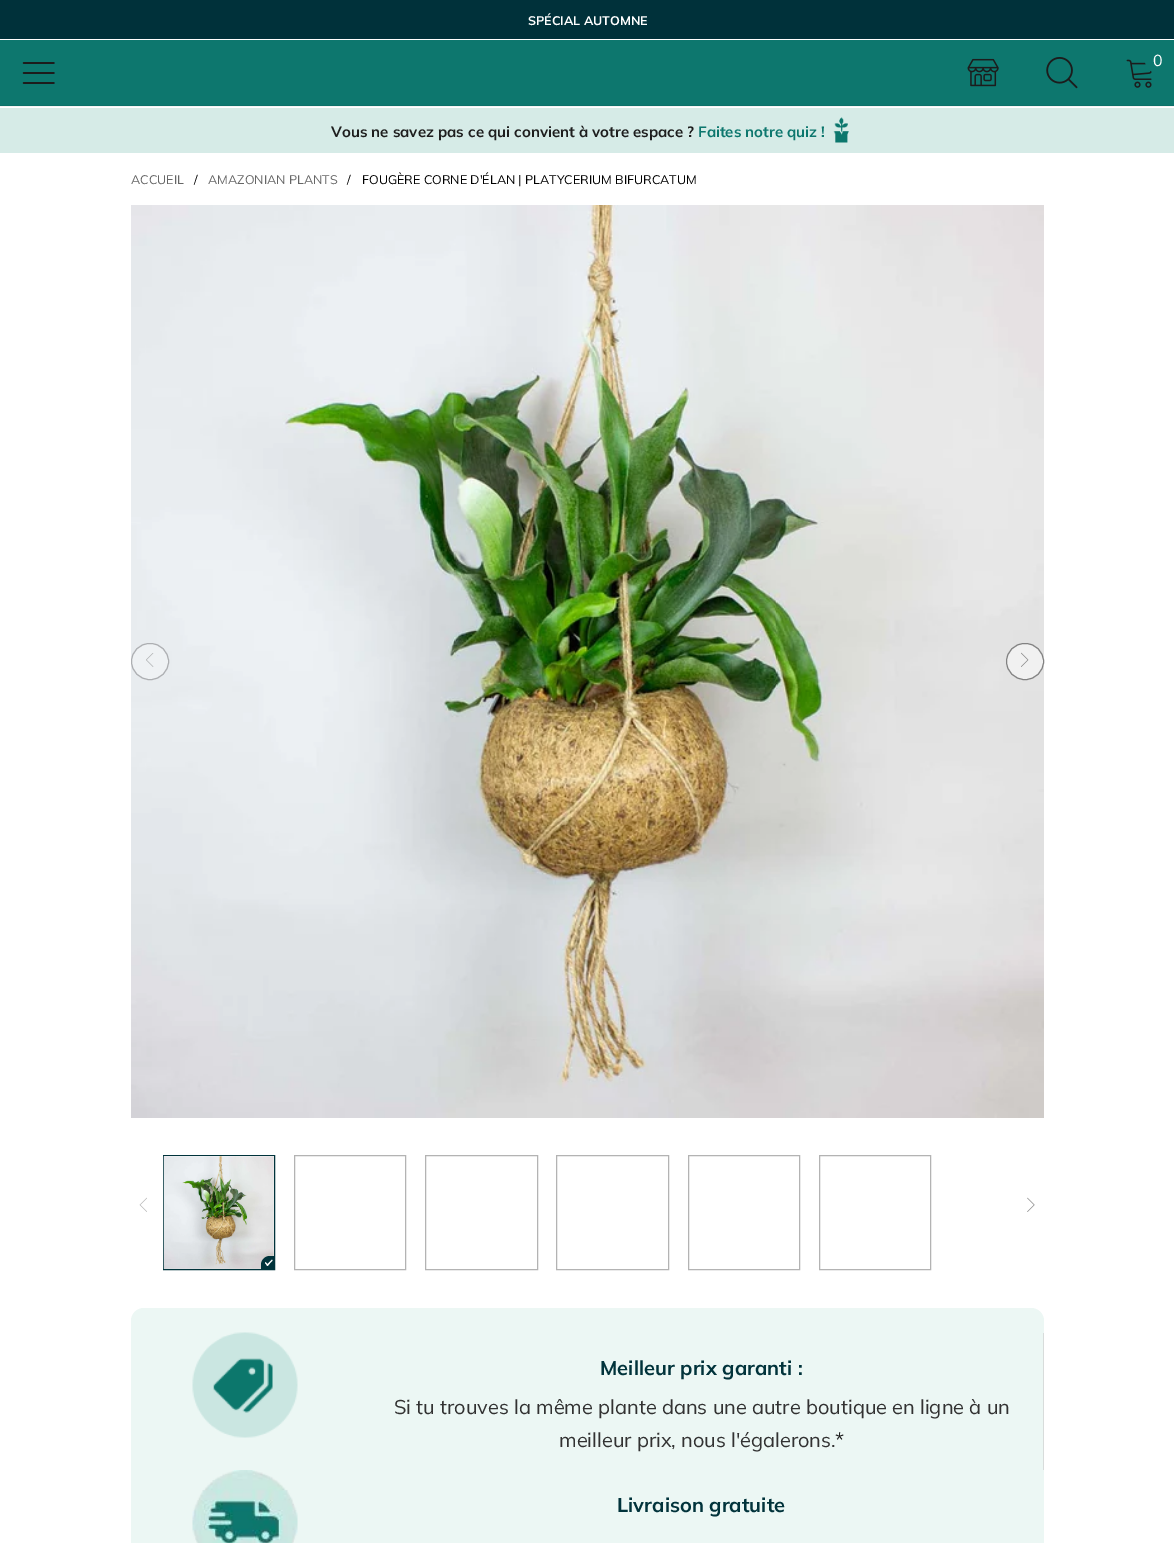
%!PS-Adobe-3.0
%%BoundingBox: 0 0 1174 1543
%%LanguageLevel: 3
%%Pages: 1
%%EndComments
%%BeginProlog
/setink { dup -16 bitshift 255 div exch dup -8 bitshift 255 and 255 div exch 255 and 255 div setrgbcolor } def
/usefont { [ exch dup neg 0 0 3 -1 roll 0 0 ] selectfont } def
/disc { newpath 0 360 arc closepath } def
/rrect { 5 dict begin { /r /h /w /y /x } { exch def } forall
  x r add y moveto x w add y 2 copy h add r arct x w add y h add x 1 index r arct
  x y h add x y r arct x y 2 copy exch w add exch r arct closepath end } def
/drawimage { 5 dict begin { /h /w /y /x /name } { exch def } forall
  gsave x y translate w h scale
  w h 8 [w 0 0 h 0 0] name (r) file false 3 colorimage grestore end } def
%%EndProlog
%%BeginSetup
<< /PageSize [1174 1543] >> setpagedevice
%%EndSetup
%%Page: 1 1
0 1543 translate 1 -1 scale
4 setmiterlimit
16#FFFFFF setink
0 0 1174 1543 rectfill
16#00313A setink
0 0 1174 39 rectfill
/Muli-Bold 12.5 usefont
16#FFFFFF setink
528 25 moveto (SPÉCIAL AUTOMNE) show
16#0D776E setink
0 40 1174 65 rectfill
16#0C7169 setink
0 105 1174 1 rectfill
(img1.raw) 967 58 32 29 drawimage
(img2.raw) 1046 57 32 32 drawimage
(img3.raw) 1126 59 26 29 drawimage
16#0D776E setink
1157.5 60.5 12.5 disc fill
/Muli-Regular 16 usefont
16#FFFFFF setink
1153 66 moveto (0) show
(img4.raw) 22 62 33 22 drawimage
16#F4F4F4 setink
0 106 1174 1 rectfill
16#D6EBE7 setink
0 108 1174 45 rectfill
/Muli-Bold 15 usefont
16#1E1E1E setink
331 137 moveto (Vous ne savez pas ce qui convient à votre espace ?) show
16#0D776E setink
698 137 moveto (Faites notre quiz !) show
(img5.raw) 833 117 16 26 drawimage
/Muli-Regular 12.5 usefont
16#666666 setink
131 184 moveto (ACCUEIL) show
16#000000 setink
194 184 moveto (/) show
16#666666 setink
208 184 moveto (AMAZONIAN PLANTS) show
16#000000 setink
347 184 moveto (/) show
362 184 moveto (FOUGÈRE CORNE D'ÉLAN | PLATYCERIUM BIFURCATUM) show
(img6.raw) 131 205 913 913 drawimage
16#EFF2F4 setink
131.5 643.5 37 36 18 rrect gsave fill grestore
16#ADAFB2 setink
stroke
(img7.raw) 146 653 8 14 drawimage
16#F1F1F1 setink
1006.5 643.5 37 36 18 rrect gsave fill grestore
16#828282 setink
stroke
(img8.raw) 1021 652 8 15 drawimage
(img9.raw) 139 1197 8 15 drawimage
16#00333B setink
163.5 1155.5 111 114 rectstroke
(img10.raw) 163 1156 111 113 drawimage
270 1256 moveto 274 1256 lineto 274 1269 lineto 261 1269 lineto 261 1265 lineto 261 1260 265 1256 270 1256 curveto closepath fill
16#FFFFFF setink
266.5 1265 moveto 272 1259.5 lineto 272.5 1260.5 lineto 267.5 1266 lineto closepath fill
265 1263 moveto 265.5 1262 lineto 268.5 1265 lineto 267.5 1266 lineto closepath fill
16#B3B3B3 setink
294.5 1155.5 111 114 rectstroke
425.5 1155.5 112 114 rectstroke
556.5 1155.5 112 114 rectstroke
688.5 1155.5 111 114 rectstroke
819.5 1155.5 111 114 rectstroke
(img11.raw) 1027 1197 8 15 drawimage
16#ECF7F4 setink
131 1308 913 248 13 rrect fill
(img12.raw) 192 1332 106 106 drawimage
/Muli-Bold 20 usefont
16#01333B setink
600 1375 moveto (Meilleur prix garanti :) show
/Muli-Regular 20 usefont
16#323232 setink
394 1414 moveto (Si tu trouves la même plante dans une autre boutique en ligne à un) show
559 1447 moveto (meilleur prix, nous l'égalerons.) show
16#1E1E1E setink
835 1447 moveto (*) show
16#D8DCDB setink
1043 1333 1 137 rectfill
(img13.raw) 192 1470 106 73 drawimage
/Muli-Bold 20 usefont
16#01333B setink
617 1512 moveto (Livraison gratuite) show
showpage
%%EOF
